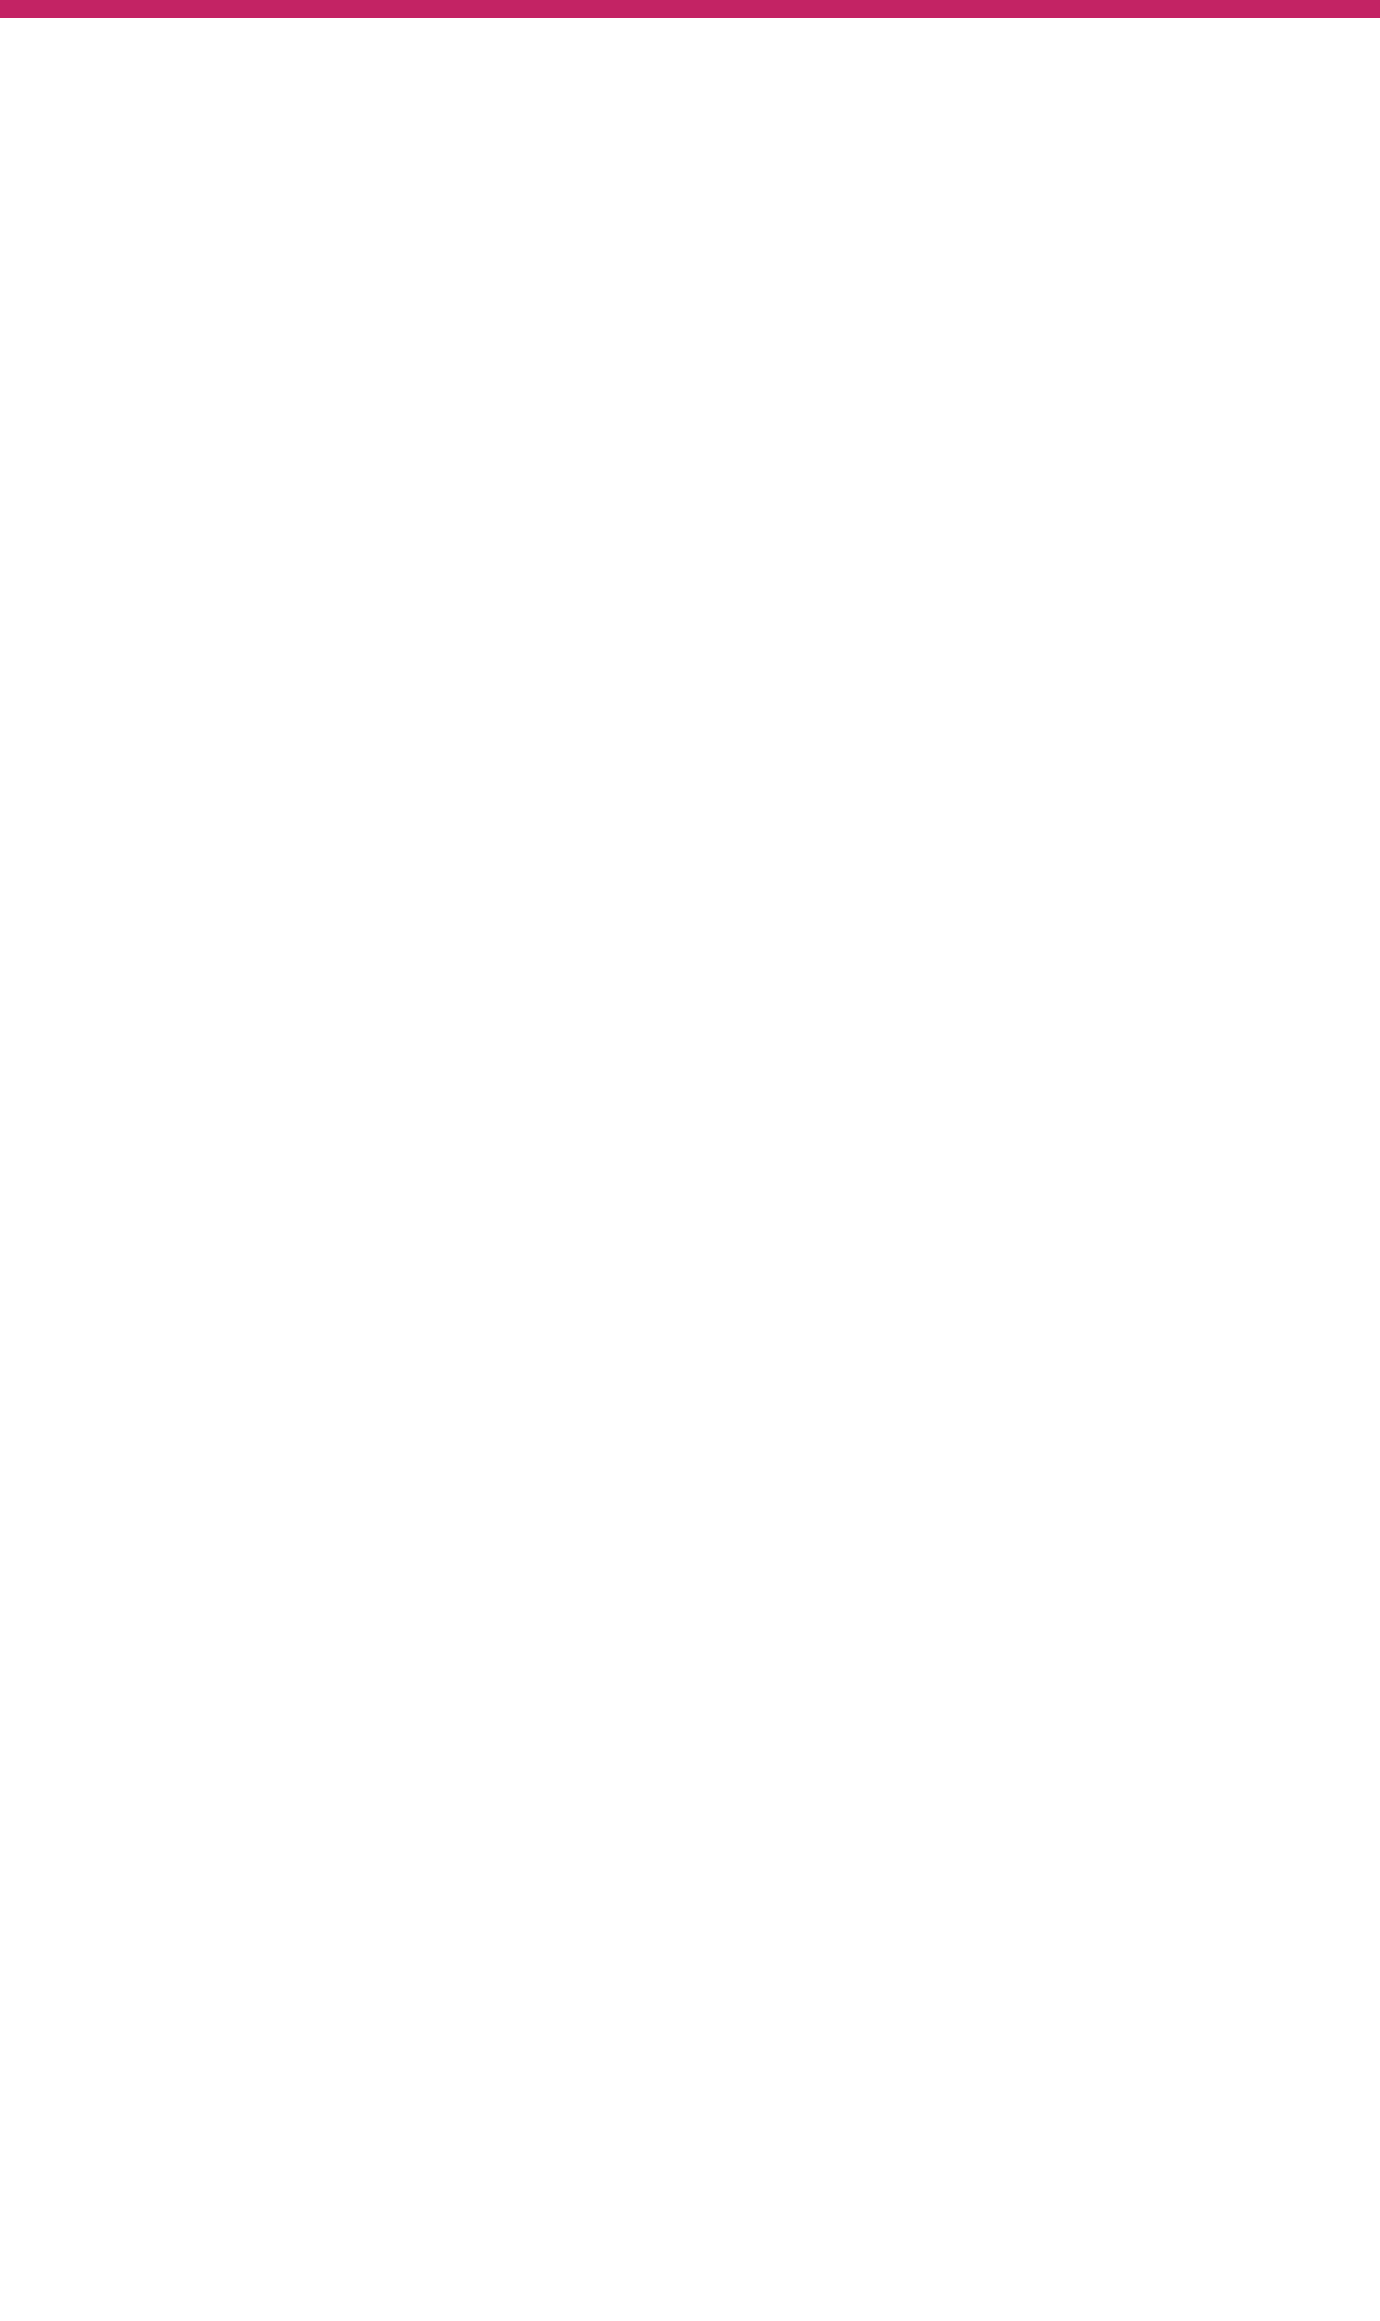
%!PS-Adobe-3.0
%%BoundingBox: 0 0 1380 2321
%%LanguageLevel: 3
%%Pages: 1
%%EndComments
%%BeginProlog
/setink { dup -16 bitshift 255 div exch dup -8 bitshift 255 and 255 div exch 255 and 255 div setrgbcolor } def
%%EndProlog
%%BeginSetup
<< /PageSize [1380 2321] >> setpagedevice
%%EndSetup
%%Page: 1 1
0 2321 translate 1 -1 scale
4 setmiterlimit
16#FFFFFF setink
0 0 1380 2321 rectfill
16#C32364 setink
0 0 1380 18 rectfill
showpage
%%EOF
